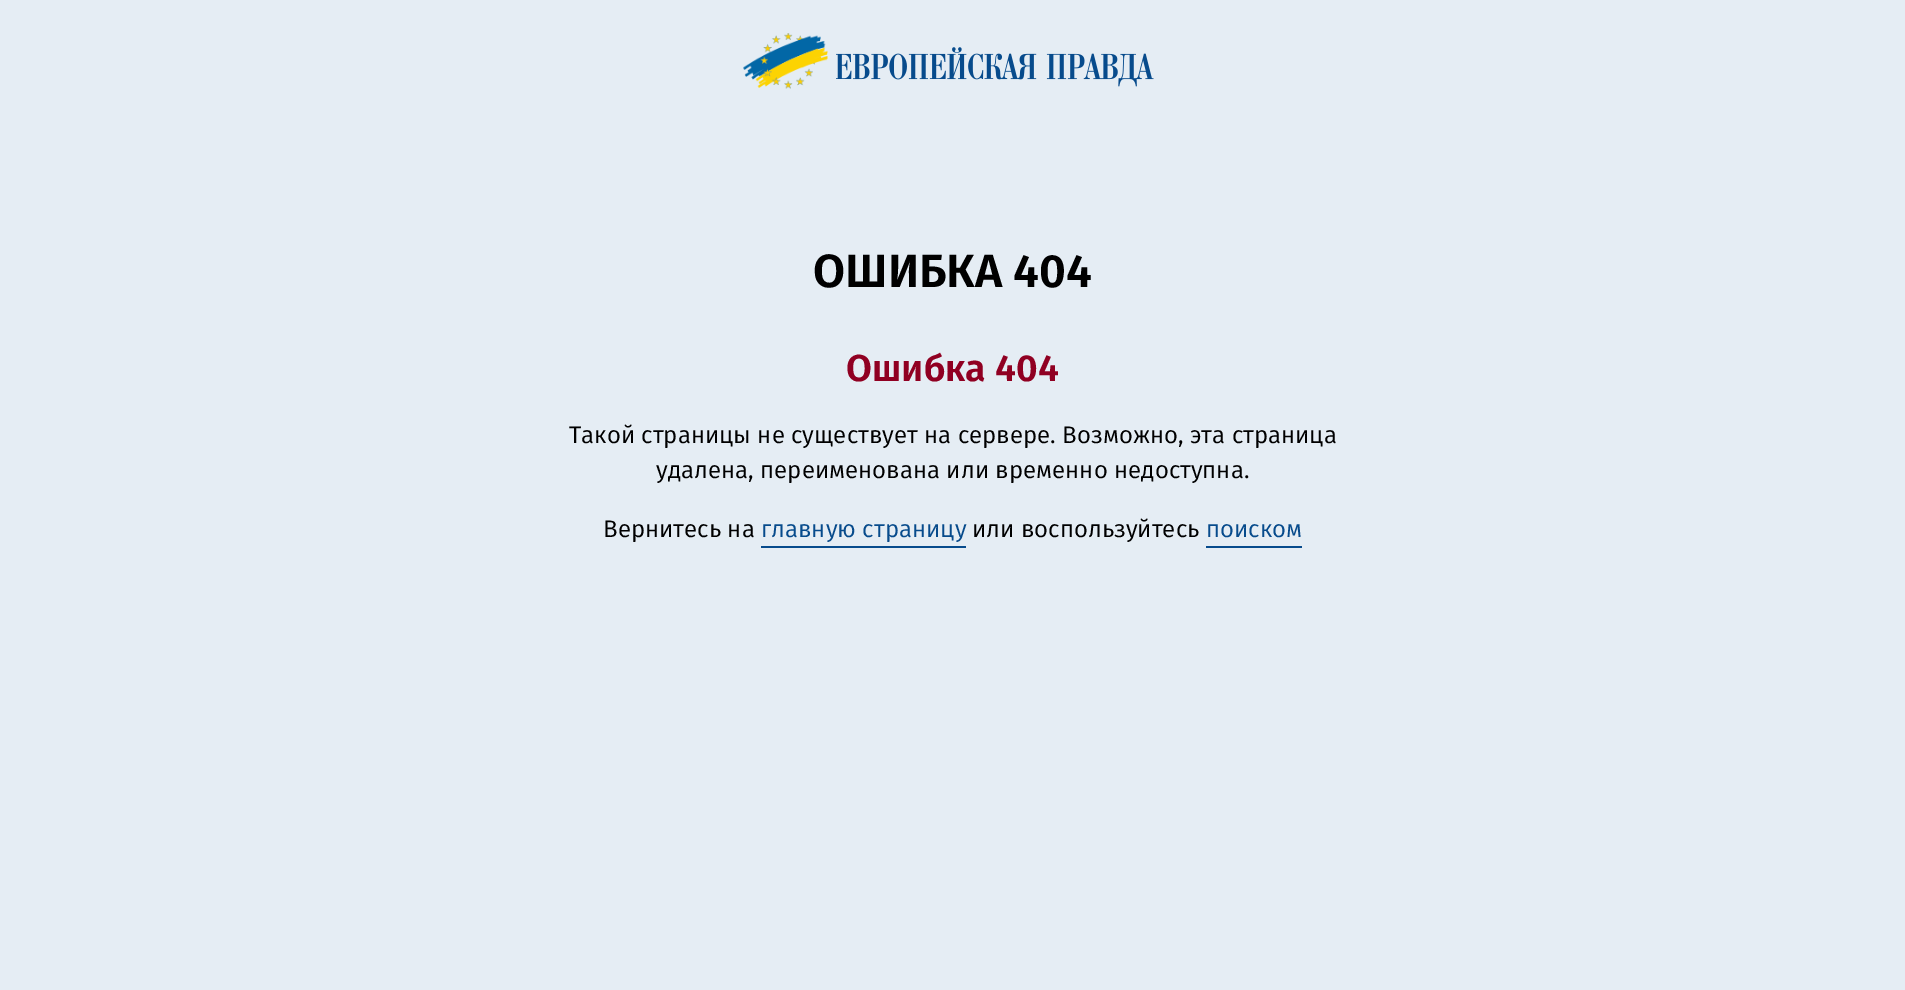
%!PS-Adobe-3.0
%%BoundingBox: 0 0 1905 990
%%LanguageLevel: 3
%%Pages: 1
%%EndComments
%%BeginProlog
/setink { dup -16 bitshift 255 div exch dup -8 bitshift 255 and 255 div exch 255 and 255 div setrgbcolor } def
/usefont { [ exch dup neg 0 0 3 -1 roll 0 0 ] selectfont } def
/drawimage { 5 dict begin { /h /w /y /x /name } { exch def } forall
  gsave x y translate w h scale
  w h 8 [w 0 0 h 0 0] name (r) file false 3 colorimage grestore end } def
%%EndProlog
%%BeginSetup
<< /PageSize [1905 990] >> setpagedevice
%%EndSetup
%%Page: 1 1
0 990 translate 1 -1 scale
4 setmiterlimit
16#E5EDF4 setink
0 0 1905 990 rectfill
(img1.raw) 743 33 85 56 drawimage
(img2.raw) 836 47 318 40 drawimage
/FiraSans-SemiBold 46.5 usefont
16#000000 setink
813 287 moveto (ОШИБКА 404) show
/FiraSans-SemiBold 37.5 usefont
16#900022 setink
846 381 moveto (Ошибка 404) show
/FiraSans-Regular 24 usefont
16#000000 setink
[
    [(Такой cтраницы не существует на сервере. Возможно, эта страница) 569 443]
    [(удалена, переименована или временно недоступна.) 656 478]
    [(Вернитесь на) 603 537]
] { aload pop moveto show } forall
16#074B8C setink
761 537 moveto (главную страницу) show
761 546 205 2 rectfill
16#000000 setink
972 537 moveto (или воспользуйтесь) show
16#074B8C setink
1206 537 moveto (поиском) show
1206 546 96 2 rectfill
showpage
%%EOF
